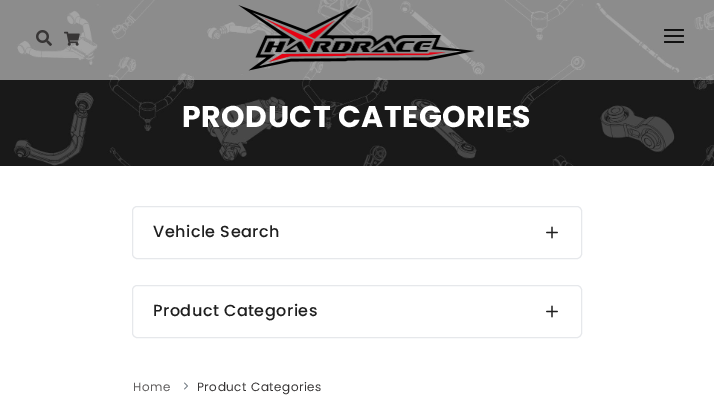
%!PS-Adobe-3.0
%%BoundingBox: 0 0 714 414
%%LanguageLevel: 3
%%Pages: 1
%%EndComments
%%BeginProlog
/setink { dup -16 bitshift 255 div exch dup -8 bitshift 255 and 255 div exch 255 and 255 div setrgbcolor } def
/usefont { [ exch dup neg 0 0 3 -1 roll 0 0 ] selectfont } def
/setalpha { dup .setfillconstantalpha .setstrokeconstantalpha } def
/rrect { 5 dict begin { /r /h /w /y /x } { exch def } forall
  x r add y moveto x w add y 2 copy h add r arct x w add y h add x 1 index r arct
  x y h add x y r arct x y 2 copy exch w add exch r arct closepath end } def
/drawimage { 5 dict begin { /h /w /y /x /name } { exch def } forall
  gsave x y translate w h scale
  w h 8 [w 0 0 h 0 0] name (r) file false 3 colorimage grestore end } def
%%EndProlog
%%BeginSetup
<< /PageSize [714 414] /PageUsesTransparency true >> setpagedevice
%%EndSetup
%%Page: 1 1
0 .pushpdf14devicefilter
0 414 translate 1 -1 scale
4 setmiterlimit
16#FFFFFF setink
0 0 714 414 rectfill
(img4.raw) 0 0 714 166 drawimage
0.5 setalpha
0 0 714 80 rectfill
1 setalpha
(img1.raw) 36 30 16 16 drawimage
(img2.raw) 64 31 16 15 drawimage
(img3.raw) 238 5 237 66 drawimage
16#111111 setink
664 35 20 2 1 rrect fill
664 29 20 2 1 rrect fill
664 41 20 2 1 rrect fill
/Poppins-Bold 30 usefont
16#FFFFFF setink
182 127 moveto 0.5 0 (PRODUCT CATEGORIES) ashow
16#E6E8EB setink
132.5 206.5 449 52 4.5 rrect stroke
/Poppins-Medium 16 usefont
16#1F1F1F setink
153 237 moveto 0.5 0 (Vehicle Search) ashow
(img5.raw) 546 226 12 13 drawimage
16#E6E8EB setink
132.5 285.5 449 52 4.5 rrect stroke
16#1F1F1F setink
153 316 moveto 0.5 0 (Product Categories) ashow
(img5.raw) 546 305 12 13 drawimage
/Poppins-Regular 12 usefont
16#5F5D5D setink
133 391 moveto 0.5 0 (Home) ashow
(img6.raw) 184 382 4 8 drawimage
16#373535 setink
197 391 moveto 0.5 0 (Product Categories) ashow
.poppdf14devicefilter showpage
%%EOF
